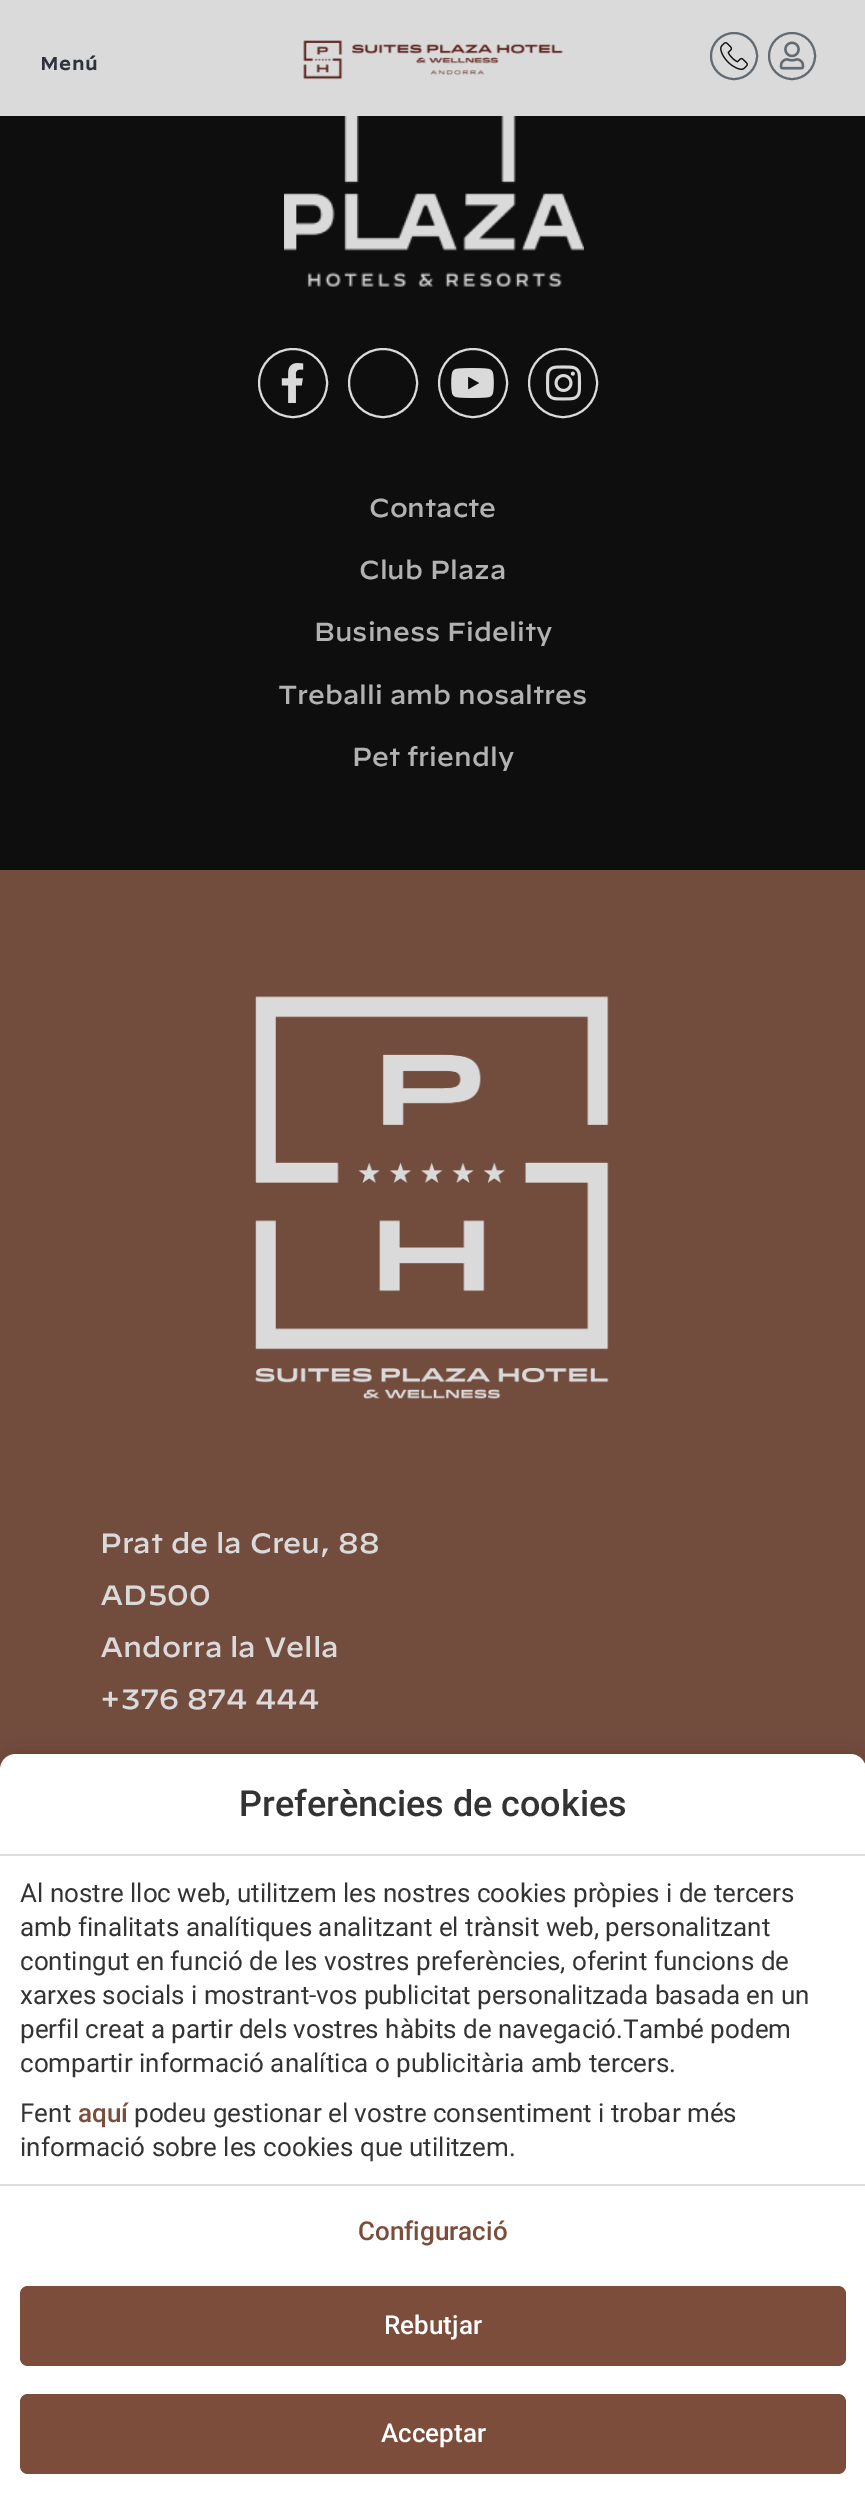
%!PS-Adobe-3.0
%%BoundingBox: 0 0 865 2494
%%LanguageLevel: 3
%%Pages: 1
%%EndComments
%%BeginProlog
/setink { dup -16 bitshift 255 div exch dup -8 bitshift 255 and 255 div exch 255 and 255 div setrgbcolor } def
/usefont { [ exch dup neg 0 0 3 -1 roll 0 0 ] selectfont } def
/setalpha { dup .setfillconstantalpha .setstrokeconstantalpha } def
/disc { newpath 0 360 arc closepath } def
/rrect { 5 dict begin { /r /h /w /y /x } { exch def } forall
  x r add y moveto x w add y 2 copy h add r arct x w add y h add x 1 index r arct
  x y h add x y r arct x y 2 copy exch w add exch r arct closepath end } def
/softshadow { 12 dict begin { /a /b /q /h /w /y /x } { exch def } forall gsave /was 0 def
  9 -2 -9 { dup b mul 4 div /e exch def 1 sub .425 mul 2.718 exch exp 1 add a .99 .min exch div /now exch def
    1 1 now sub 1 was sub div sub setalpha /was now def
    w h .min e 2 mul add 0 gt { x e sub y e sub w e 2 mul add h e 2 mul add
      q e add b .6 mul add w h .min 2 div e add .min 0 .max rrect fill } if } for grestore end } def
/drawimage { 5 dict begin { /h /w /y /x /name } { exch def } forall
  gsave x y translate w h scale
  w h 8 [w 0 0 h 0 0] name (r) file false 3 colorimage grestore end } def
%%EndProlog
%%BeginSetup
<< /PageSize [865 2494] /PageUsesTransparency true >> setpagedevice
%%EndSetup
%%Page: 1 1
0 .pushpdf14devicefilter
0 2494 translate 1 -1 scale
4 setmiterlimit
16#0E0E0E setink
0 0 865 2494 rectfill
16#DADADA setink
0 0 865 116 rectfill
/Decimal-Bold 18 usefont
16#2E323A setink
40 70 moveto 1 0 (Menú) ashow
(img1.raw) 303 40 260 40 drawimage
16#626A72 setink
2 setlinewidth
734 56 23 disc stroke
(img2.raw) 720 42 28 28 drawimage
792 56 23 disc stroke
(img3.raw) 779 41 26 29 drawimage
(img4.raw) 284 116 300 171 drawimage
16#DADADA setink
293 383 34 disc stroke
(img5.raw) 281 363 23 40 drawimage
383 383 34 disc stroke
473 383 34 disc stroke
(img6.raw) 451 368 43 30 drawimage
563 383 34 disc stroke
(img7.raw) 546 365 36 36 drawimage
/Decimal-Medium 26 usefont
16#B2B2B2 setink
[
    [(Contacte) 369 517]
    [(Club Plaza) 359 579]
    [(Business Fidelity) 314 641]
    [(Treballi amb nosaltres) 278 704]
    [(Pet friendly) 352 766]
] { aload pop moveto show } forall
16#724C3D setink
0 870 865 900 rectfill
(img8.raw) 255 996 354 403 drawimage
/Decimal-Medium 28 usefont
16#DADADA setink
[
    [(Prat de la Creu, 88) 100 1553]
    [(AD500) 100 1605]
    [(Andorra la Vella) 100 1657]
    [(+376 874 444) 100 1709]
] { aload pop moveto show } forall
16#000000 setink
0 1754 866 740 16 10 0.15 softshadow
16#FFFFFF setink
16 1754 moveto 850 1754 lineto 859 1754 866 1761 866 1770 curveto 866 2494 lineto 0 2494 lineto 0 1770 lineto 0 1761 7 1754 16 1754 curveto closepath fill
16#DDDDDD setink
0 1854 865 2 rectfill
/Roboto-Medium 36 usefont
16#333333 setink
239 1816 moveto (Preferències de cookies) show
16#DDDDDD setink
0 2184 865 2 rectfill
/Roboto-Regular 26 usefont
16#333333 setink
[
    [(Al nostre lloc web, utilitzem les nostres cookies pròpies i de tercers) 20 1902]
    [(amb finalitats analítiques analitzant el trànsit web, personalitzant) 20 1936]
    [(contingut en funció de les vostres preferències, oferint funcions de) 20 1970]
    [(xarxes socials i mostrant-vos publicitat personalitzada basada en un) 20 2004]
    [(perfil creat a partir dels vostres hàbits de navegació.També podem) 20 2038]
    [(compartir informació analítica o publicitària amb tercers.) 20 2072]
    [(Fent) 20 2122]
] { aload pop moveto show } forall
/Roboto-Medium 26 usefont
16#7C4D3A setink
78 2122 moveto (aquí) show
/Roboto-Regular 26 usefont
16#333333 setink
134 2122 moveto (podeu gestionar el vostre consentiment i trobar més) show
20 2156 moveto (informació sobre les cookies que utilitzem.) show
/Roboto-Medium 26 usefont
16#7C4D3A setink
358 2240 moveto (Configuració) show
20 2286 826 80 8 rrect fill
16#FFFFFF setink
384 2334 moveto (Rebutjar) show
16#7C4D3A setink
20 2394 826 80 8 rrect fill
16#FFFFFF setink
381 2442 moveto (Acceptar) show
.poppdf14devicefilter showpage
%%EOF
